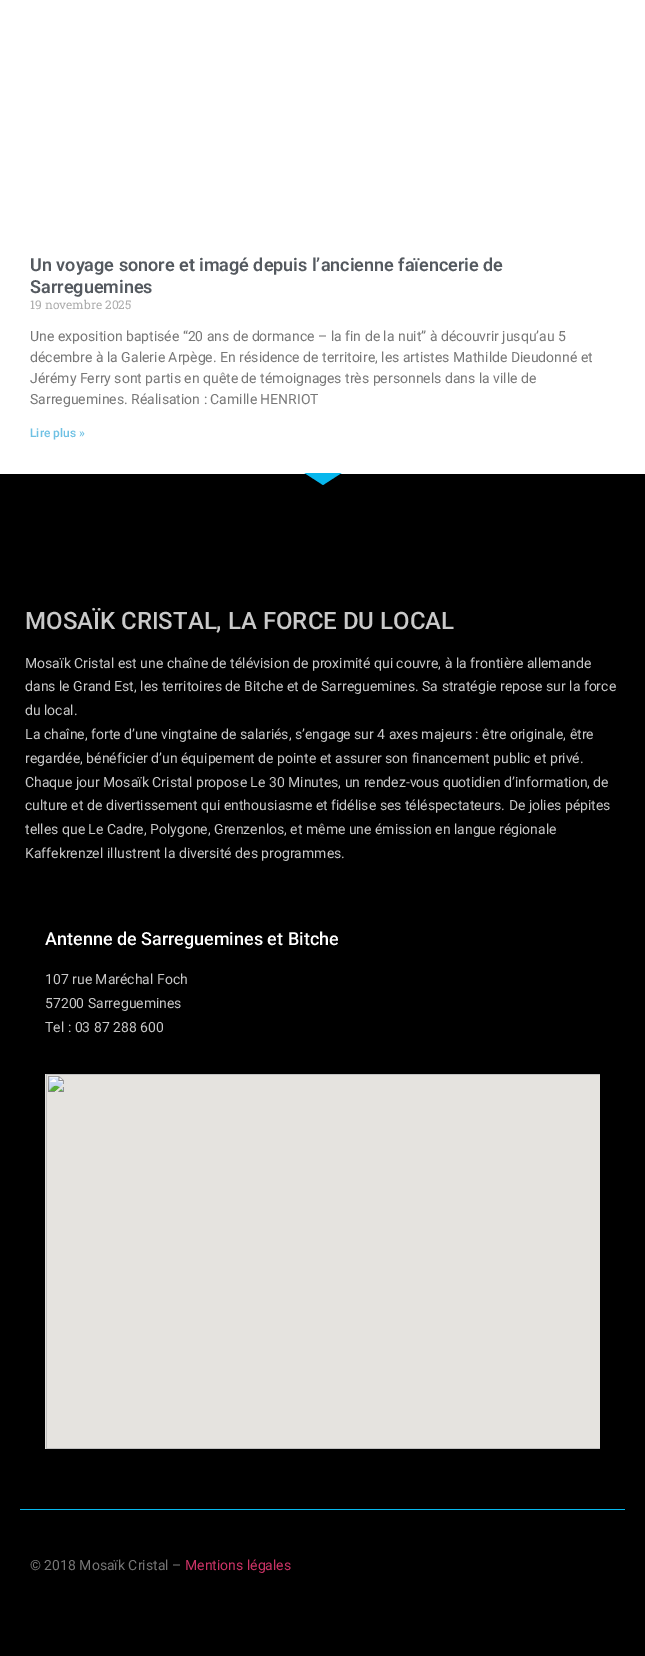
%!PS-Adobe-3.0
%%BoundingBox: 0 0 645 1656
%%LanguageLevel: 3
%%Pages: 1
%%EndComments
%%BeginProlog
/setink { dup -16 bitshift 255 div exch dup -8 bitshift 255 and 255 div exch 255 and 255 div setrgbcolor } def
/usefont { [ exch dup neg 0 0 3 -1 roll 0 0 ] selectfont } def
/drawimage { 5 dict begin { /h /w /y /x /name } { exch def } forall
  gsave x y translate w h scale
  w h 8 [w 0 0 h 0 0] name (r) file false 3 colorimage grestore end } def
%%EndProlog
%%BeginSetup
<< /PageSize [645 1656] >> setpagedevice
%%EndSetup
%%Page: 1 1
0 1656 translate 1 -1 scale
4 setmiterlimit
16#FFFFFF setink
0 0 645 1656 rectfill
/Roboto-SemiBold 18 usefont
16#54595F setink
30 271 moveto (Un voyage sonore et imagé depuis l’ancienne faïencerie de) show
30 293 moveto (Sarreguemines) show
/RobotoSlab-Regular 12 usefont
16#ADADAD setink
30 309 moveto (19 novembre 2025) show
/Roboto-Regular 14 usefont
16#777777 setink
[
    [(Une exposition baptisée “20 ans de dormance – la fin de la nuit” à découvrir jusqu’au 5) 30 341]
    [(décembre à la Galerie Arpège. En résidence de territoire, les artistes Mathilde Dieudonné et) 30 362]
    [(Jérémy Ferry sont partis en quête de témoignages très personnels dans la ville de) 30 383]
    [(Sarreguemines. Réalisation : Camille HENRIOT) 30 404]
] { aload pop moveto show } forall
/Roboto-Medium 12 usefont
16#6EC1E4 setink
30 437 moveto (Lire plus ») show
16#000000 setink
0 474 645 1182 rectfill
16#07B7ED setink
323 485 moveto 304.5 473 lineto 341.5 473 lineto closepath fill
/Roboto-Medium 24 usefont
16#C9C9C9 setink
25 629 moveto (MOSAÏK CRISTAL, LA FORCE DU LOCAL) show
/Roboto-Regular 14 usefont
[
    [(Mosaïk Cristal est une chaîne de télévision de proximité qui couvre, à la frontière allemande) 25 668]
    [(dans le Grand Est, les territoires de Bitche et de Sarreguemines. Sa stratégie repose sur la force) 25 691]
    [(du local.) 25 715]
    [(La chaîne, forte d’une vingtaine de salariés, s’engage sur 4 axes majeurs : être originale, être) 25 739]
    [(regardée, bénéficier d’un équipement de pointe et assurer son financement public et privé.) 25 763]
    [(Chaque jour Mosaïk Cristal propose Le 30 Minutes, un rendez-vous quotidien d’information, de) 25 787]
    [(culture et de divertissement qui enthousiasme et fidélise ses téléspectateurs. De jolies pépites) 25 810]
    [(telles que Le Cadre, Polygone, Grenzenlos, et même une émission en langue régionale) 25 834]
    [(Kaffekrenzel illustrent la diversité des programmes.) 25 858]
] { aload pop moveto show } forall
/Roboto-Medium 18 usefont
16#FFFFFF setink
45 945 moveto (Antenne de Sarreguemines et Bitche) show
/Roboto-Regular 14 usefont
16#C9C9C9 setink
[
    [(107 rue Maréchal Foch) 45 984]
    [(57200 Sarreguemines) 45 1008]
    [(Tel : 03 87 288 600) 45 1032]
] { aload pop moveto show } forall
(img1.raw) 45 1074 555 375 drawimage
16#07B7ED setink
20 1509 605 1 rectfill
16#777777 setink
30 1570 moveto (© 2018 Mosaïk Cristal –) show
16#CC3366 setink
185 1570 moveto (Mentions légales) show
showpage
%%EOF
